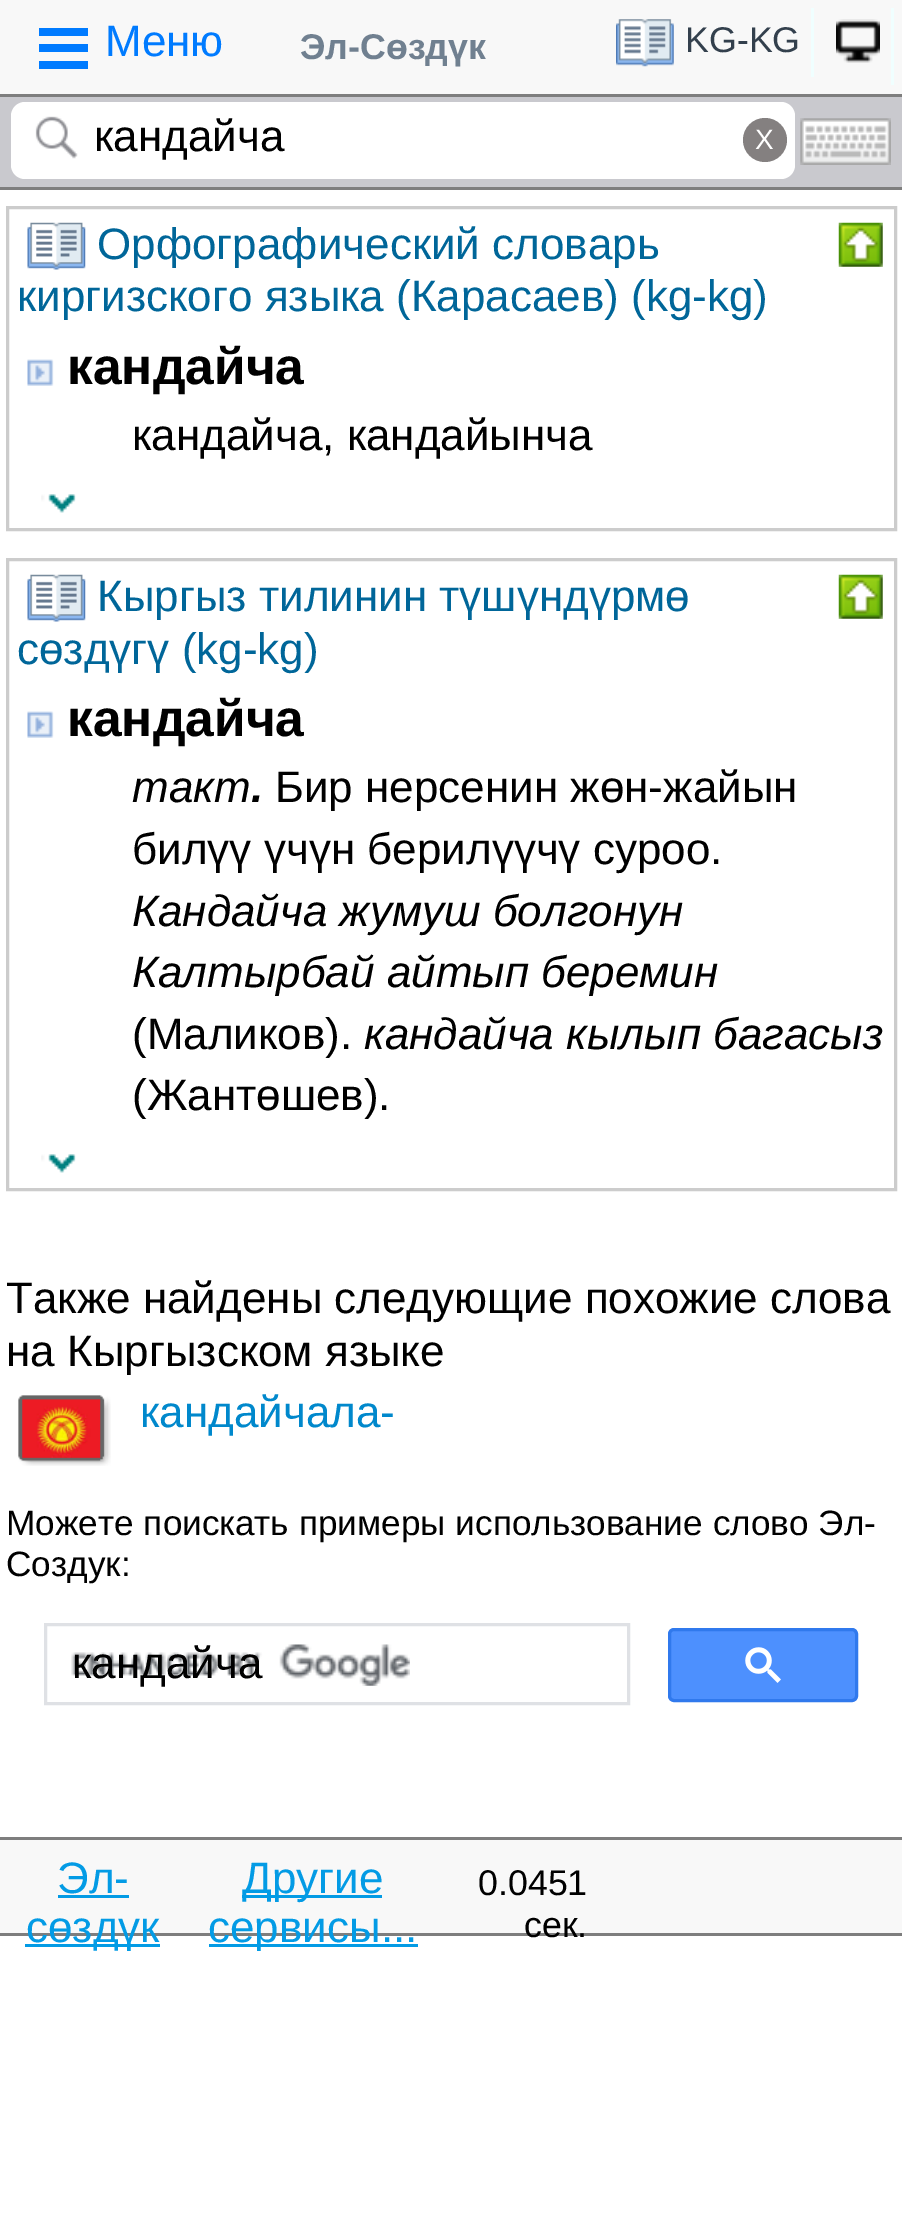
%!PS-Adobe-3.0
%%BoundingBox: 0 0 902 2233
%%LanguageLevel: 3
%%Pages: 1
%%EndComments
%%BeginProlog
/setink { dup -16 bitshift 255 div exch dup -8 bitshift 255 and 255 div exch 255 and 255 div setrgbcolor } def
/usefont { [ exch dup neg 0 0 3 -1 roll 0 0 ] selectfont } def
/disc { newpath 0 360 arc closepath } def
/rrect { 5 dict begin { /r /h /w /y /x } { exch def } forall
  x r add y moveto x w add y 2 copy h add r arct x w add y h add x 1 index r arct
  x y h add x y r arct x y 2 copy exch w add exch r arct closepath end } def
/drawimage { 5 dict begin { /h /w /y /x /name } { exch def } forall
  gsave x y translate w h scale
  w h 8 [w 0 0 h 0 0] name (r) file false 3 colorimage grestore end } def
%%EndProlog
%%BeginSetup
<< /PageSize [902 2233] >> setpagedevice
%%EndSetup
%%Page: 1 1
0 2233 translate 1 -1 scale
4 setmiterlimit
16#FFFFFF setink
0 0 902 2233 rectfill
[
    [0 0 902 94 16#F8F8F8]
    [0 94 902 3 16#7E7E7E]
    [39 28 49 8 16#007BFF]
    [39 44 49 8 16#007BFF]
    [39 61 49 8 16#007BFF]
] { aload pop setink rectfill } forall
/LiberationSans-Regular 44 usefont
105 56 moveto (Меню) show
/LiberationSans-Bold 35.75 usefont
16#708090 setink
300 59 moveto (Эл-Сөздүк) show
16#F0FFFF setink
811 8 3 69 rectfill
(img1.raw) 616 19 58 48 drawimage
/LiberationSans-Regular 35.75 usefont
16#33404D setink
685 52 moveto (KG-KG) show
16#F0FFFF setink
891 8 3 77 rectfill
(img2.raw) 836 19 44 44 drawimage
16#C9C9CE setink
0 97 902 90 rectfill
16#7E7E7E setink
0 187 902 3 rectfill
16#FFFFFF setink
11 102 784 77 14 rrect fill
(img3.raw) 35 116 43 43 drawimage
/LiberationSans-Regular 44 usefont
16#000000 setink
94 151 moveto (кандайча) show
16#848080 setink
765 140 22 disc fill
/LiberationSans-Regular 28 usefont
16#FFFFFF setink
755 149 moveto (X) show
(img4.raw) 800 118 91 47 drawimage
16#CCCCCC setink
3 setlinewidth
7.5 207.5 888 322 rectstroke
(img5.raw) 27 222 59 48 drawimage
/LiberationSans-Regular 44 usefont
16#006699 setink
97 259 moveto (Орфографический словарь) show
17 311 moveto (киргизского языка \(Карасаев\) \(kg-kg\)) show
(img6.raw) 838 222 45 45 drawimage
(img7.raw) 27 359 27 27 drawimage
/LiberationSans-Bold 51.5 usefont
16#000000 setink
67 384 moveto (кандайча) show
/LiberationSans-Regular 44 usefont
132 450 moveto (кандайча, кандайынча) show
(img8.raw) 41 494 35 19 drawimage
16#CCCCCC setink
7.5 559.5 888 630 rectstroke
(img5.raw) 27 574 59 48 drawimage
16#006699 setink
97 611 moveto (Кыргыз тилинин түшүндүрмө) show
17 664 moveto (сөздүгү \(kg-kg\)) show
(img6.raw) 838 574 45 45 drawimage
(img7.raw) 27 711 27 27 drawimage
/LiberationSans-Bold 51.5 usefont
16#000000 setink
67 736 moveto (кандайча) show
/LiberationSans-Italic 44 usefont
132 802 moveto (такт) show
/LiberationSans-BoldItalic 44 usefont
251 802 moveto (.) show
/LiberationSans-Regular 44 usefont
275 802 moveto (Бир нерсенин жөн-жайын) show
132 864 moveto (билүү үчүн берилүүчү суроо.) show
/LiberationSans-Italic 44 usefont
132 926 moveto (Кандайча жумуш болгонун) show
132 987 moveto (Калтырбай айтып беремин) show
/LiberationSans-Regular 44 usefont
132 1049 moveto (\(Маликов\).) show
/LiberationSans-Italic 44 usefont
364 1049 moveto (кандайча кылып багасыз) show
/LiberationSans-Regular 44 usefont
132 1110 moveto (\(Жантөшев\).) show
(img8.raw) 41 1154 35 19 drawimage
6 1313 moveto (Также найдены следующие похожие слова) show
6 1366 moveto (на Кыргызском языке) show
(img9.raw) 18 1395 93 71 drawimage
16#0088CC setink
140 1427 moveto (кандайчала-) show
/LiberationSans-Regular 35.2 usefont
16#000000 setink
6 1535 moveto (Можете поискать примеры использование слово Эл-) show
6 1576 moveto (Создук:) show
16#DFE1E5 setink
45.5 1624.5 583 79 rectstroke
(img10.raw) 71 1644 339 42 drawimage
/LiberationSans-Regular 44 usefont
16#000000 setink
72 1678 moveto (кандайча) show
16#4D90FE setink
669.5 1629.5 187 71 4.5 rrect gsave fill grestore
16#3079ED setink
stroke
(img11.raw) 745 1647 36 36 drawimage
[
    [0 1840 902 93 16#F8F8F8]
    [0 1837 902 3 16#7E7E7E]
    [0 1933 902 3 16#7E7E7E]
] { aload pop setink rectfill } forall
16#039BE5 setink
57 1893 moveto (Эл-) show
58 1895 71 3 rectfill
25 1944 135 3 rectfill
26 1942 moveto (сөздүк) show
242 1895 140 3 rectfill
242 1893 moveto (Другие) show
209 1944 209 3 rectfill
208 1942 moveto (сервисы...) show
/LiberationSans-Regular 35.75 usefont
16#000000 setink
478 1895 moveto (0.0451) show
524 1937 moveto (сек.) show
showpage
%%EOF
